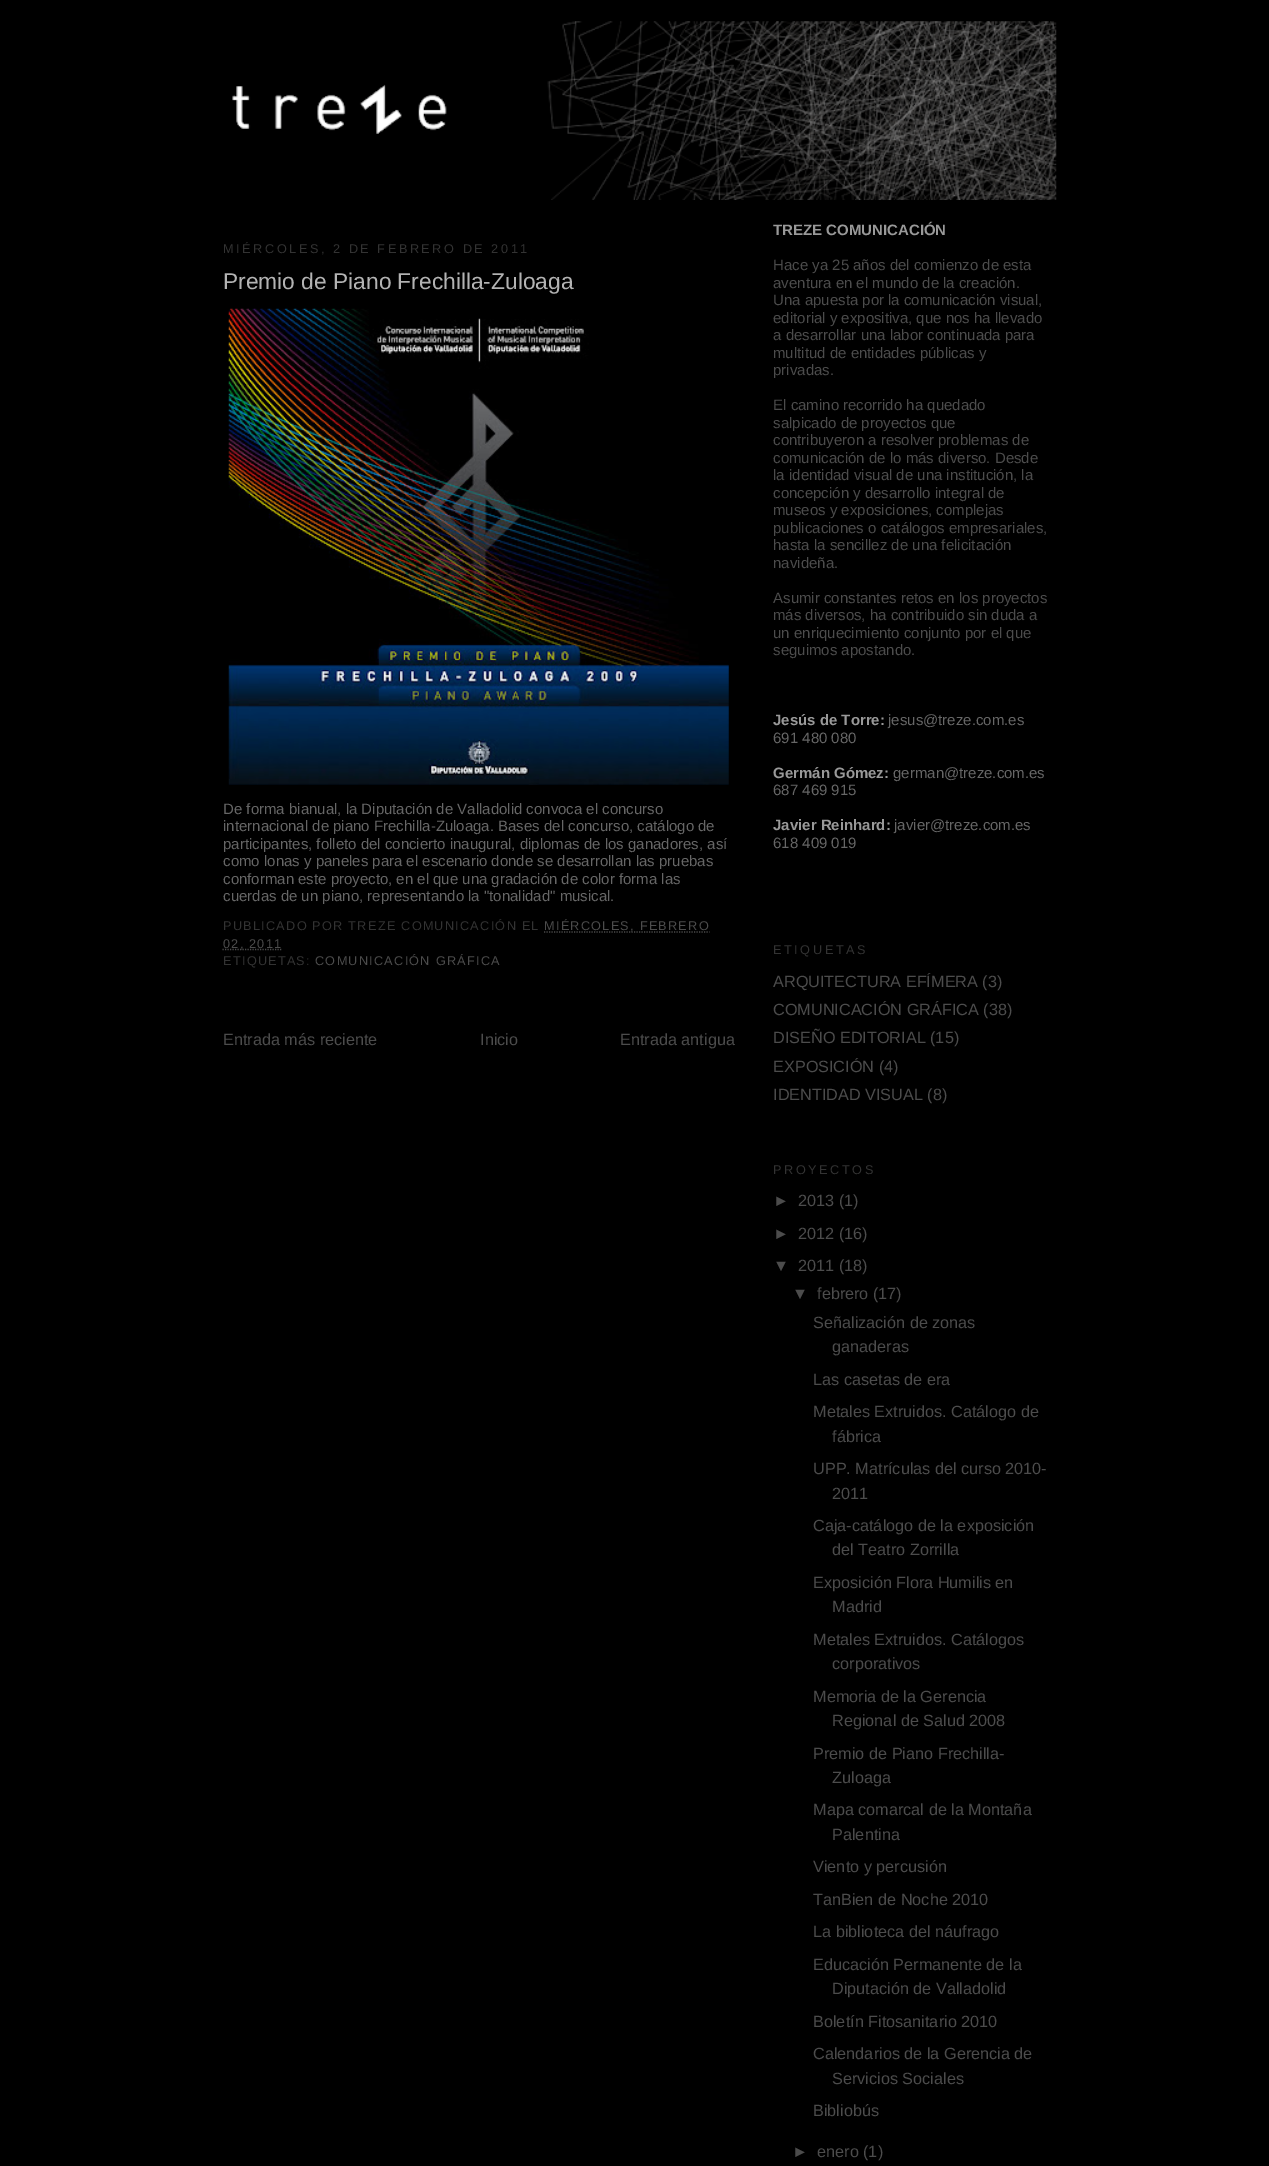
%!PS-Adobe-3.0
%%BoundingBox: 0 0 1269 2166
%%LanguageLevel: 3
%%Pages: 1
%%EndComments
%%BeginProlog
/setink { dup -16 bitshift 255 div exch dup -8 bitshift 255 and 255 div exch 255 and 255 div setrgbcolor } def
/usefont { [ exch dup neg 0 0 3 -1 roll 0 0 ] selectfont } def
/drawimage { 5 dict begin { /h /w /y /x /name } { exch def } forall
  gsave x y translate w h scale
  w h 8 [w 0 0 h 0 0] name (r) file false 3 colorimage grestore end } def
%%EndProlog
%%BeginSetup
<< /PageSize [1269 2166] >> setpagedevice
%%EndSetup
%%Page: 1 1
0 2166 translate 1 -1 scale
4 setmiterlimit
16#000000 setink
0 0 1269 2166 rectfill
(img1.raw) 232 21 825 179 drawimage
/LiberationSans-Regular 12.7 usefont
16#333333 setink
223 253 moveto 2.55 0 (MIÉRCOLES, 2 DE FEBRERO DE 2011) ashow
/LiberationSans-Regular 22.75 usefont
16#B3B3B3 setink
223 289 moveto (Premio de Piano Frechilla-Zuloaga) show
(img2.raw) 228 308 501 477 drawimage
/LiberationSans-Regular 15 usefont
16#666666 setink
[
    [(De forma bianual, la Diputación de Valladolid convoca el concurso) 223 814]
    [(internacional de piano Frechilla-Zuloaga. Bases del concurso, catálogo de) 223 831]
    [(participantes, folleto del concierto inaugural, diplomas de los ganadores, así) 223 849]
    [(como lonas y paneles para el escenario donde se desarrollan las pruebas) 223 866]
    [(conforman este proyecto, en el que una gradación de color forma las) 223 884]
    [(cuerdas de un piano, representando la "tonalidad" musical.) 223 901]
] { aload pop moveto show } forall
/LiberationSans-Regular 12.7 usefont
16#333333 setink
223 930 moveto 1.25 0 (PUBLICADO POR TREZE COMUNICACIÓN EL) ashow
16#4C4C4C setink
1.2 setlinewidth
[1.25 1.25] 0 setdash
544 932 moveto 709.5 932 lineto stroke
544 930 moveto 1.25 0 (MIÉRCOLES, FEBRERO) ashow
222.5 949.5 moveto 282 949.5 lineto stroke
223 948 moveto 1.25 0 (02, 2011) ashow
16#333333 setink
223 965 moveto 1.25 0 (ETIQUETAS:) ashow
16#4C4C4C setink
315 965 moveto 1.25 0 (COMUNICACIÓN GRÁFICA) ashow
/LiberationSans-Regular 16.25 usefont
[
    [(Entrada más reciente) 223 1045]
    [(Inicio) 480 1045]
    [(Entrada antigua) 620 1045]
] { aload pop moveto show } forall
gsave
773 221 275 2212 rectclip
/LiberationSans-Bold 15 usefont
16#999999 setink
773 235 moveto (TREZE COMUNICACIÓN) show
grestore
/LiberationSans-Regular 15 usefont
[
    [(Hace ya 25 años del comienzo de esta) 773 270]
    [(aventura en el mundo de la creación.) 773 288]
    [(Una apuesta por la comunicación visual,) 773 305]
    [(editorial y expositiva, que nos ha llevado) 773 323]
    [(a desarrollar una labor continuada para) 773 340]
    [(multitud de entidades públicas y) 773 358]
    [(privadas.) 773 375]
    [(El camino recorrido ha quedado) 773 410]
    [(salpicado de proyectos que) 773 428]
    [(contribuyeron a resolver problemas de) 773 445]
    [(comunicación de lo más diverso. Desde) 773 463]
    [(la identidad visual de una institución, la) 773 480]
    [(concepción y desarrollo integral de) 773 498]
    [(museos y exposiciones, complejas) 773 515]
    [(publicaciones o catálogos empresariales,) 773 533]
    [(hasta la sencillez de una felicitación) 773 550]
    [(navideña.) 773 568]
    [(Asumir constantes retos en los proyectos) 773 603]
    [(más diversos, ha contribuido sin duda a) 773 620]
    [(un enriquecimiento conjunto por el que) 773 638]
    [(seguimos apostando.) 773 655]
] { aload pop moveto show } forall
/LiberationSans-Bold 15 usefont
16#999999 setink
773 725 moveto (Jesús de Torre:) show
/LiberationSans-Regular 15 usefont
16#666666 setink
888 725 moveto (jesus@treze.com.es) show
773 743 moveto (691 480 080) show
/LiberationSans-Bold 15 usefont
16#999999 setink
773 778 moveto (Germán Gómez:) show
/LiberationSans-Regular 15 usefont
16#666666 setink
893 778 moveto (german@treze.com.es) show
773 795 moveto (687 469 915) show
/LiberationSans-Bold 15 usefont
16#999999 setink
773 830 moveto (Javier Reinhard:) show
/LiberationSans-Regular 15 usefont
16#666666 setink
894 830 moveto (javier@treze.com.es) show
773 848 moveto (618 409 019) show
/LiberationSans-Regular 12.7 usefont
16#333333 setink
773 954 moveto 2.55 0 (ETIQUETAS) ashow
/LiberationSans-Regular 16.25 usefont
16#4C4C4C setink
[
    [(ARQUITECTURA EFÍMERA \(3\)) 773 987]
    [(COMUNICACIÓN GRÁFICA \(38\)) 773 1015]
    [(DISEÑO EDITORIAL \(15\)) 773 1043]
    [(EXPOSICIÓN \(4\)) 773 1072]
    [(IDENTIDAD VISUAL \(8\)) 773 1100]
] { aload pop moveto show } forall
/LiberationSans-Regular 12.7 usefont
16#333333 setink
773 1174 moveto 2.55 0 (PROYECTOS) ashow
/LiberationSans-Regular 16.25 usefont
16#4C4C4C setink
[
    [(►) 773 1206]
    [(2013 \(1\)) 798 1206]
    [(►) 773 1239]
    [(2012 \(16\)) 798 1239]
    [(▼) 773 1271]
    [(2011 \(18\)) 798 1271]
    [(▼) 792 1299]
    [(febrero \(17\)) 817 1299]
    [(Señalización de zonas) 813 1328]
    [(ganaderas) 832 1352]
    [(Las casetas de era) 813 1385]
    [(Metales Extruidos. Catálogo de) 813 1417]
    [(fábrica) 832 1442]
    [(UPP. Matrículas del curso 2010-) 813 1474]
    [(2011) 832 1499]
    [(Caja-catálogo de la exposición) 813 1531]
    [(del Teatro Zorrilla) 832 1555]
    [(Exposición Flora Humilis en) 813 1588]
    [(Madrid) 832 1612]
    [(Metales Extruidos. Catálogos) 813 1645]
    [(corporativos) 832 1669]
    [(Memoria de la Gerencia) 813 1702]
    [(Regional de Salud 2008) 832 1726]
    [(Premio de Piano Frechilla-) 813 1759]
    [(Zuloaga) 832 1783]
    [(Mapa comarcal de la Montaña) 813 1815]
    [(Palentina) 832 1840]
    [(Viento y percusión) 813 1872]
    [(TanBien de Noche 2010) 813 1905]
    [(La biblioteca del náufrago) 813 1937]
    [(Educación Permanente de la) 813 1970]
    [(Diputación de Valladolid) 832 1994]
    [(Boletín Fitosanitario 2010) 813 2027]
    [(Calendarios de la Gerencia de) 813 2059]
    [(Servicios Sociales) 832 2084]
    [(Bibliobús) 813 2116]
    [(►) 792 2157]
    [(enero \(1\)) 817 2157]
] { aload pop moveto show } forall
showpage
%%EOF
